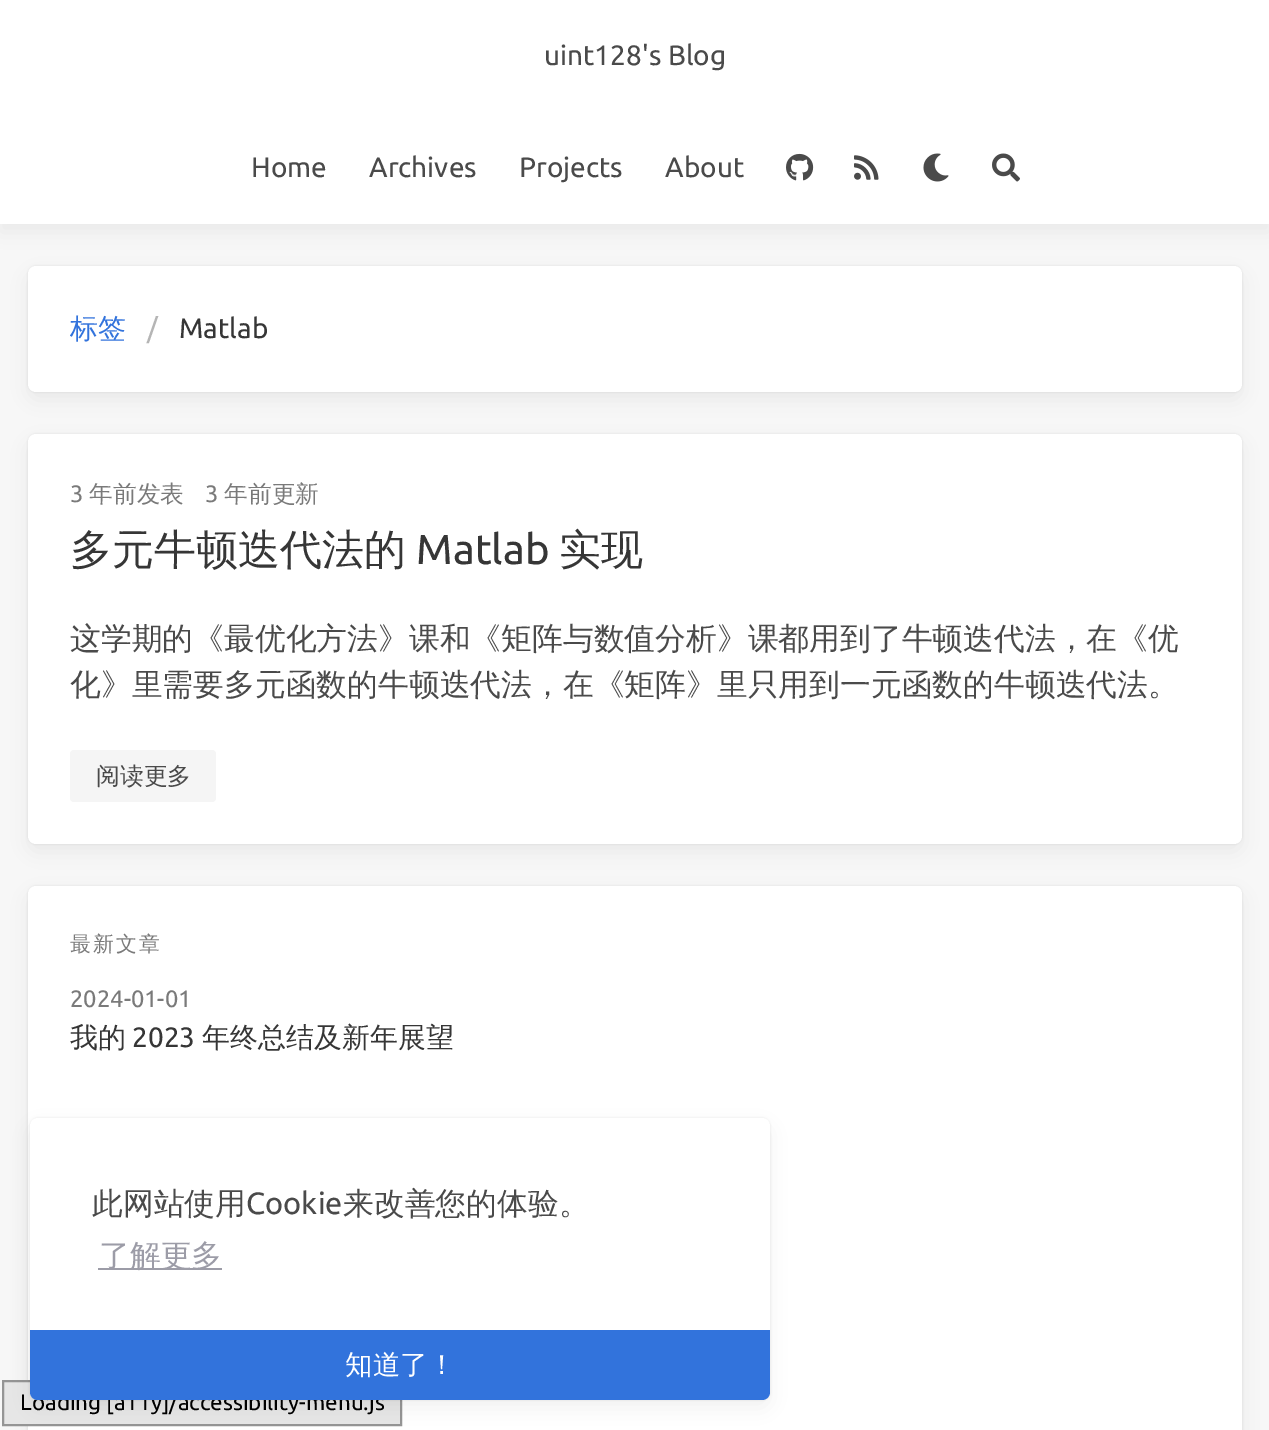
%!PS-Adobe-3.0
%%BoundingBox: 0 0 1269 1430
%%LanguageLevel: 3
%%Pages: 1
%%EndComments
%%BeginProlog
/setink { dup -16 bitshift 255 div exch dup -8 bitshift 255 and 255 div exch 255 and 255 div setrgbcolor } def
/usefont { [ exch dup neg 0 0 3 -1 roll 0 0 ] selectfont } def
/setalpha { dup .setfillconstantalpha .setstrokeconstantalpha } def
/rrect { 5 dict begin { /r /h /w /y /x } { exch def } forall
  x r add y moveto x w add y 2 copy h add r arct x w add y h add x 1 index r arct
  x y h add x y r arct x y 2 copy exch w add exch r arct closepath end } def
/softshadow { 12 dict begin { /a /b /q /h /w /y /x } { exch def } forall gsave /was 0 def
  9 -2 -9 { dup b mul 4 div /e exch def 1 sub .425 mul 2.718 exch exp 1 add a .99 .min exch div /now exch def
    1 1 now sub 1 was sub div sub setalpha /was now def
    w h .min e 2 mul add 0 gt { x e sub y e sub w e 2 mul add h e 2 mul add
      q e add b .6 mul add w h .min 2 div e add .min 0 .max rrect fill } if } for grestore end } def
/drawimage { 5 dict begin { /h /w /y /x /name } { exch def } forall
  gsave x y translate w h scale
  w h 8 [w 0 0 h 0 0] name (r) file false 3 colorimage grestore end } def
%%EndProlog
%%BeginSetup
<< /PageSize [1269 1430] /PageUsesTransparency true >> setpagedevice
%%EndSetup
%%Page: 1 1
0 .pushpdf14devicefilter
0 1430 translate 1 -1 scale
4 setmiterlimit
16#F7F7F7 setink
0 0 1269 1430 rectfill
16#000000 setink
0 8 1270 224 0 10 0.05 softshadow
16#FFFFFF setink
0 0 1269 224 rectfill
/Ubuntu-Regular 28 usefont
16#4A4A4A setink
[
    [(uint128's Blog) 544 65]
    [(Home) 251 177]
    [(Archives) 369 177]
    [(Projects) 519 177]
    [(About) 665 177]
] { aload pop moveto show } forall
(img1.raw) 786 153 28 28 drawimage
(img2.raw) 854 155 25 25 drawimage
(img3.raw) 923 153 26 29 drawimage
(img4.raw) 992 153 28 29 drawimage
16#000000 setink
28 266 1214 126 8 1 0.1 softshadow
28 274 1214 126 8 10 0.05 softshadow
16#FFFFFF setink
28 266 1214 126 8 rrect fill
/WenQuanYiZenHei-Medium 28 usefont
16#3273DC setink
70 338 moveto (标签) show
/Ubuntu-Regular 28 usefont
16#B5B5B5 setink
147 338 moveto (/) show
16#363636 setink
179 338 moveto (Matlab) show
16#000000 setink
28 434 1214 410 8 1 0.1 softshadow
28 442 1214 410 8 10 0.05 softshadow
16#FFFFFF setink
28 434 1214 410 8 rrect fill
/Ubuntu-Regular 23.75 usefont
16#7A7A7A setink
70 502 moveto (3) show
/WenQuanYiZenHei-Medium 23.75 usefont
89 502 moveto (年前发表) show
/Ubuntu-Regular 23.75 usefont
205 502 moveto (3) show
/WenQuanYiZenHei-Medium 23.75 usefont
224 502 moveto (年前更新) show
/WenQuanYiZenHei-Medium 42 usefont
16#363636 setink
70 564 moveto (多元牛顿迭代法的) show
/Ubuntu-Regular 42 usefont
416 564 moveto (Matlab) show
/WenQuanYiZenHei-Medium 42 usefont
559 564 moveto (实现) show
/WenQuanYiZenHei-Medium 30.8 usefont
16#4A4A4A setink
70 649 moveto (这学期的《最优化方法》课和《矩阵与数值分析》课都用到了牛顿迭代法，在《优) show
70 695 moveto (化》里需要多元函数的牛顿迭代法，在《矩阵》里只用到一元函数的牛顿迭代法。) show
16#F5F5F5 setink
70 750 146 52 4 rrect fill
/WenQuanYiZenHei-Medium 23.75 usefont
16#4A4A4A setink
96 784 moveto (阅读更多) show
16#000000 setink
28 886 1214 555 8 1 0.1 softshadow
28 894 1214 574 8 10 0.05 softshadow
16#FFFFFF setink
28 886 1214 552 8 rrect fill
/WenQuanYiZenHei-Medium 21 usefont
16#7A7A7A setink
70 951 moveto 2 0 (最新文章) ashow
/Ubuntu-Regular 23.75 usefont
70 1007 moveto (2024-01-01) show
/WenQuanYiZenHei-Medium 28 usefont
16#363636 setink
70 1047 moveto (我的) show
/Ubuntu-Regular 28 usefont
132 1047 moveto (2023) show
/WenQuanYiZenHei-Medium 28 usefont
202 1047 moveto (年终总结及新年展望) show
16#E6E6E6 setink
3 1381 moveto 401 1381 lineto 401 1425 lineto 3 1425 lineto closepath gsave fill grestore
16#959595 setink
2 setlinewidth
stroke
16#000000 setink
30 1118 740 282 8 1 0.1 softshadow
30 1126 740 282 8 10 0.05 softshadow
/Ubuntu-Regular 22.4 usefont
20 1410 moveto (Loading [a11y]/accessibility-menu.js) show
16#FFFFFF setink
30 1118 740 282 8 rrect fill
/WenQuanYiZenHei-Medium 30.8 usefont
16#4A4A4A setink
92 1214 moveto (此网站使用) show
/Ubuntu-Regular 30.8 usefont
246 1214 moveto (Cookie) show
/WenQuanYiZenHei-Medium 30.8 usefont
343 1214 moveto (来改善您的体验。) show
16#9C9CA7 setink
98 1268 124 2 rectfill
99 1266 moveto (了解更多) show
16#3273DC setink
30 1330 moveto 770 1330 lineto 770 1392 lineto 770 1396.5 766.5 1400 762 1400 curveto 38 1400 lineto 33.5 1400 30 1396.5 30 1392 curveto closepath fill
/WenQuanYiZenHei-Medium 27.5 usefont
16#FFFFFF setink
345 1374 moveto (知道了！) show
.poppdf14devicefilter showpage
%%EOF
